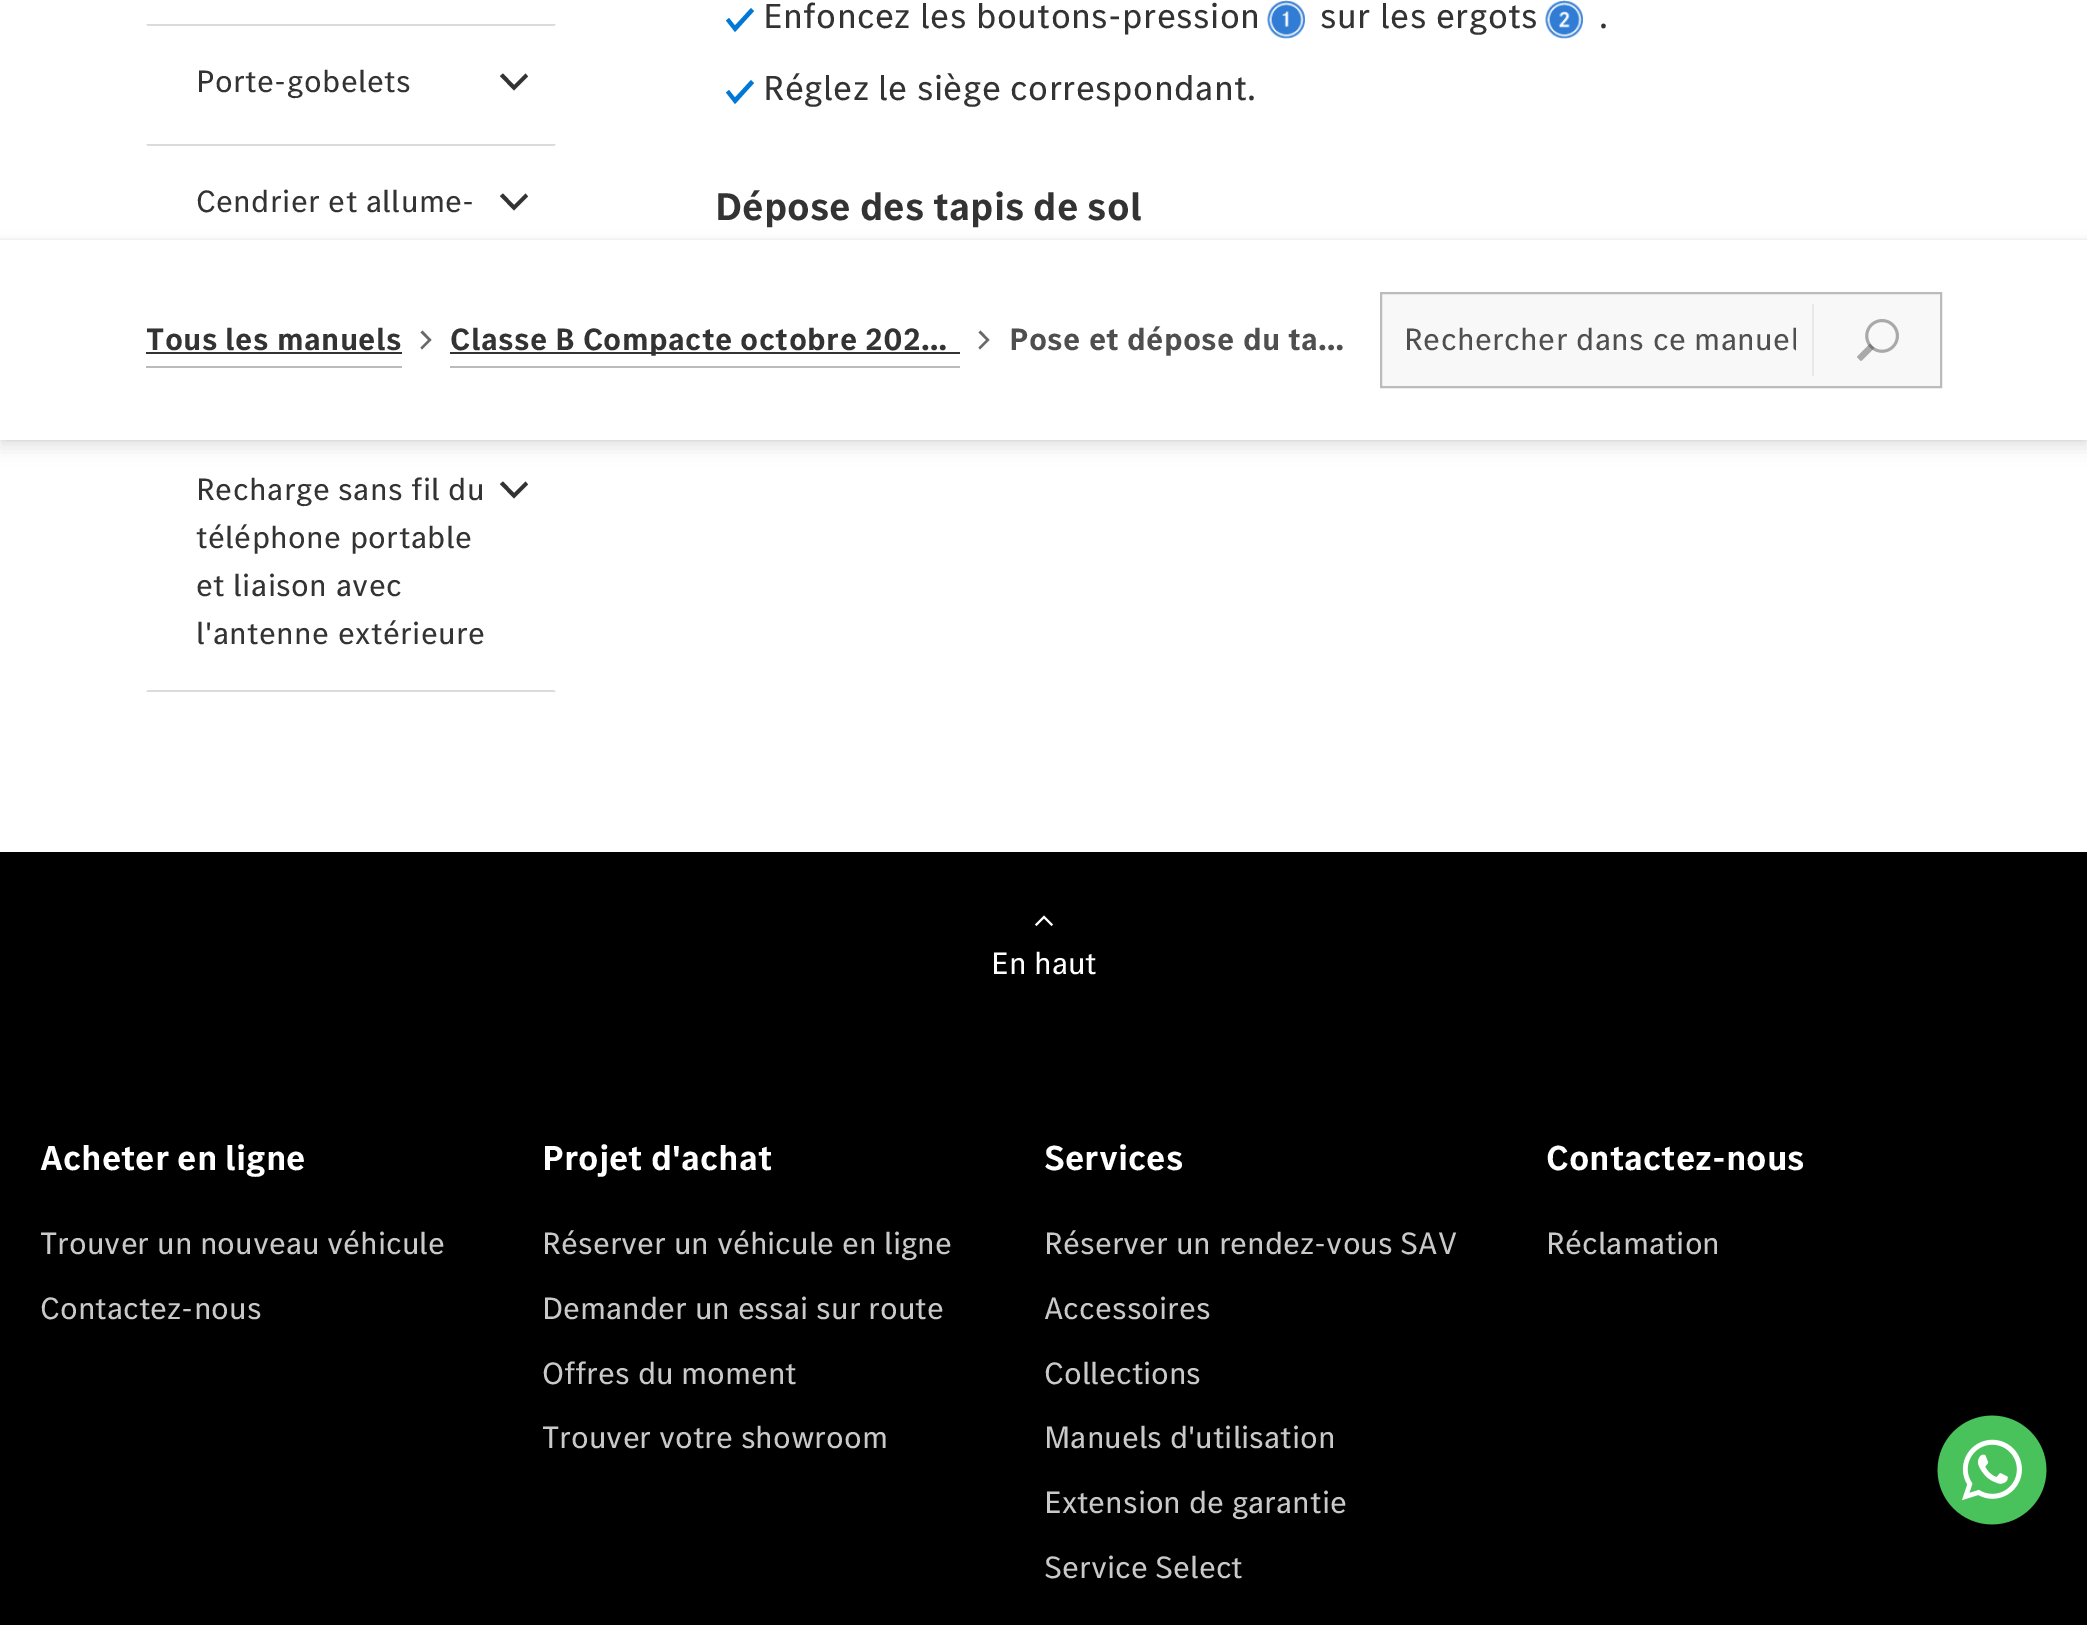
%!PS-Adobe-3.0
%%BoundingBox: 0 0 2087 1625
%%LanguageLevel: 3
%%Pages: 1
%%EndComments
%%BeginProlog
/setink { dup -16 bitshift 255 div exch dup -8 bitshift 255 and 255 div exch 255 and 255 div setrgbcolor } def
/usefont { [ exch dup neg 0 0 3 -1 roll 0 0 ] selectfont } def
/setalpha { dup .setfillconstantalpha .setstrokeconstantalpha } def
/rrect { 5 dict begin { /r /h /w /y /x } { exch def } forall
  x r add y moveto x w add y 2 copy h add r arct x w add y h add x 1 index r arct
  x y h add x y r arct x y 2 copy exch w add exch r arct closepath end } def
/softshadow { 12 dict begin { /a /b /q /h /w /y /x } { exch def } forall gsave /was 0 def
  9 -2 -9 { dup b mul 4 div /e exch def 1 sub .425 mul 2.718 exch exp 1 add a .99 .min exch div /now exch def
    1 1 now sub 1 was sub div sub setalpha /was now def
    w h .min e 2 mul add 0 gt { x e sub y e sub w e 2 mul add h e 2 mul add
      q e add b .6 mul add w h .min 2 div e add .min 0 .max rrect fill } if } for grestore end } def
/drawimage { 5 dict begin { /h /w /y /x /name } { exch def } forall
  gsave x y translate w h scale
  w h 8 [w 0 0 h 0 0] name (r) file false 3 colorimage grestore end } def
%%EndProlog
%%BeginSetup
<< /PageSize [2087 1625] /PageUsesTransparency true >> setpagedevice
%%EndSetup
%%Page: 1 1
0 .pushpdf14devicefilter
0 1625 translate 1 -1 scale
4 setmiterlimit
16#FFFFFF setink
0 0 2087 1625 rectfill
16#DBDBDB setink
146 24 moveto 556 24 lineto 554 26 lineto 148 26 lineto closepath fill
/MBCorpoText-Regular 32 usefont
16#333333 setink
196 92 moveto 0.4 0 (Porte-gobelets) ashow
528 76.5 moveto 525.5 73.5 lineto 514 85 lineto 503 73.5 lineto 500 76 lineto 514 90.5 lineto closepath fill
16#DBDBDB setink
146 144 moveto 556 144 lineto 554 146 lineto 148 146 lineto closepath fill
16#333333 setink
196 212 moveto 0.4 0 (Cendrier et allume-) ashow
528 196.5 moveto 525.5 193.5 lineto 514 205 lineto 503 193.5 lineto 500 196 lineto 514 210.5 lineto closepath fill
16#DBDBDB setink
556 692 moveto 146 692 lineto 148 690 lineto 554 690 lineto closepath fill
16#333333 setink
196 500 moveto 0.4 0 (Recharge sans fil du) ashow
528 484.5 moveto 525.5 481.5 lineto 514 493 lineto 503 481.5 lineto 500 484 lineto 514 498.5 lineto closepath fill
196 548 moveto 0.4 0 (téléphone portable) ashow
196 596 moveto 0.4 0 (et liaison avec) ashow
196 644 moveto 0.4 0 (l'antenne extérieure) ashow
16#0078D6 setink
735 32 moveto 726 20.5 lineto 729 18 lineto 735 25.5 lineto 751 8 lineto 754 11 lineto closepath fill
/MBCorpoText-Regular 36 usefont
16#333333 setink
763 28 moveto 0.4 0 (Enfoncez les boutons-pression) ashow
(img1.raw) 1267 0 38 39 drawimage
1320 28 moveto 0.4 0 (sur les ergots) ashow
(img2.raw) 1545 0 38 39 drawimage
1599 28 moveto 0.4 0 (.) ashow
16#0078D6 setink
735 104 moveto 726 92.5 lineto 729 90 lineto 735 97.5 lineto 751 80 lineto 754 83 lineto closepath fill
16#333333 setink
763 100 moveto 0.4 0 (Réglez le siège correspondant.) ashow
/MBCorpoText-Bold 40 usefont
715 220 moveto (Dépose des tapis de sol) show
16#000000 setink
0 248 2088 200 0 8 0.1 softshadow
0 240 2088 200 0 2 0.1 softshadow
16#FFFFFF setink
0 240 2087 200 rectfill
16#BBBBBB setink
146 366 256 2 rectfill
/MBCorpoText-Bold 32 usefont
16#333333 setink
146 350 moveto 0.4 0 (Tous les manuels) ashow
146 352 256 2 rectfill
16#696969 setink
422.5 330.5 moveto 420.5 332.5 lineto 428 340 lineto 420.5 347.5 lineto 422 349.5 lineto 431.5 340 lineto closepath fill
16#BBBBBB setink
450 366 510 2 rectfill
16#333333 setink
450 352 510 2 rectfill
450 350 moveto 0.4 0 (Classe B Compacte octobre 202…) ashow
16#696969 setink
980.5 330.5 moveto 978.5 332.5 lineto 986 340 lineto 978.5 347.5 lineto 980 349.5 lineto 989.5 340 lineto closepath fill
16#4F4F4F setink
1009 350 moveto 0.4 0 (Pose et dépose du ta…) ashow
16#F8F8F8 setink
1381 293 moveto 1941 293 lineto 1941 387 lineto 1381 387 lineto closepath gsave fill grestore
16#BBBBBB setink
2 setlinewidth
stroke
gsave
1404 316 392 48 rectclip
/MBCorpoText-Regular 32 usefont
16#4F4F4F setink
1404 350 moveto 0.4 0 (Rechercher dans ce manuel) ashow
grestore
16#E8E8E8 setink
1812 304 2 72 rectfill
(img3.raw) 1857 319 42 42 drawimage
16#000000 setink
0 852 2087 773 rectfill
16#FFFFFF setink
1044 918.5 moveto 1051.5 926 lineto 1053 924.5 lineto 1044 915.5 lineto 1035 924.5 lineto 1036.5 926 lineto closepath fill
/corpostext-Regular 32 usefont
991 974 moveto (En haut) show
/corpostext-Bold 36 usefont
40 1170 moveto (Acheter en ligne) show
/corpostext-Regular 32 usefont
16#C9C9C9 setink
40 1254 moveto (Trouver un nouveau véhicule) show
40 1319 moveto (Contactez-nous) show
/corpostext-Bold 36 usefont
16#FFFFFF setink
542 1170 moveto (Projet d'achat) show
/corpostext-Regular 32 usefont
16#C9C9C9 setink
[
    [(Réserver un véhicule en ligne) 542 1254]
    [(Demander un essai sur route) 542 1319]
    [(Offres du moment) 542 1384]
    [(Trouver votre showroom) 542 1448]
] { aload pop moveto show } forall
/corpostext-Bold 36 usefont
16#FFFFFF setink
1044 1170 moveto (Services) show
/corpostext-Regular 32 usefont
16#C9C9C9 setink
[
    [(Réserver un rendez-vous SAV) 1044 1254]
    [(Accessoires) 1044 1319]
    [(Collections) 1044 1384]
    [(Manuels d'utilisation) 1044 1448]
    [(Extension de garantie) 1044 1513]
    [(Service Select) 1044 1578]
] { aload pop moveto show } forall
/corpostext-Bold 36 usefont
16#FFFFFF setink
1546 1170 moveto (Contactez-nous) show
/corpostext-Regular 32 usefont
16#C9C9C9 setink
1546 1254 moveto (Réclamation) show
(img4.raw) 1937 1415 110 110 drawimage
.poppdf14devicefilter showpage
%%EOF
